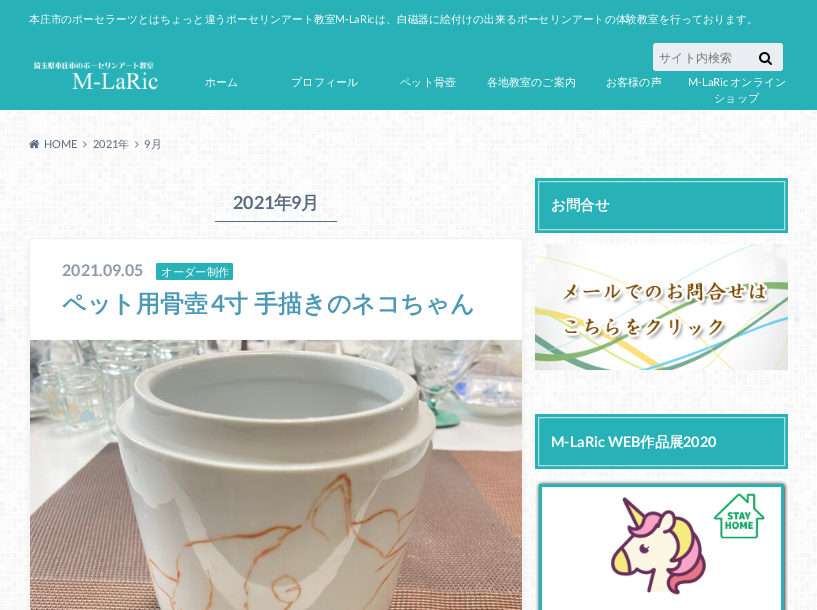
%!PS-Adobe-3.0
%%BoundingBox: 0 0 817 610
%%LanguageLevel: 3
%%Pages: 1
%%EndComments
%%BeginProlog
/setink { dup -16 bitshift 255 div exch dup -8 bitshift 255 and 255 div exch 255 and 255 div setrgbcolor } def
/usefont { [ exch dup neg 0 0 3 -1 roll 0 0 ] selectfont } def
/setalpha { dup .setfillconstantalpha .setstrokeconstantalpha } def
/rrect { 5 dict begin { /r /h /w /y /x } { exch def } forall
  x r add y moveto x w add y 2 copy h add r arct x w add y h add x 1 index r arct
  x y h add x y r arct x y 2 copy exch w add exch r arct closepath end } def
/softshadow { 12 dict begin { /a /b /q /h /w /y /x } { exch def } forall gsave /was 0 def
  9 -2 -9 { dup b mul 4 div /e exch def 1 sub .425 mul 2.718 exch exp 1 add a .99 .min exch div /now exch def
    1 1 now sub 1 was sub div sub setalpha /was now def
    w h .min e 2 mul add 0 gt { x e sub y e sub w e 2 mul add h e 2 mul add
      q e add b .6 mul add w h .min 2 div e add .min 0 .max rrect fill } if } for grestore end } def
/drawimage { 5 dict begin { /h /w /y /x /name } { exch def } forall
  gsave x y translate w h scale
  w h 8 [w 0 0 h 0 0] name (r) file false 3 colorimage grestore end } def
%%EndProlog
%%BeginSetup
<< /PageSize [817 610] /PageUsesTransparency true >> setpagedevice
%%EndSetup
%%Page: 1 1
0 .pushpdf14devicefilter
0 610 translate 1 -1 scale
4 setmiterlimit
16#FFFFFF setink
0 0 817 610 rectfill
(img1.raw) 0 110 817 500 drawimage
16#28B2B7 setink
0 0 817 110 rectfill
/WenQuanYiZenHei-Medium 10.8 usefont
16#FFFFFF setink
29 23 moveto (本庄市のポーセラーツとはちょっと違うポーセリンアート教室) show
/Lato-Regular 10.8 usefont
335 23 moveto (M-LaRic) show
/WenQuanYiZenHei-Medium 10.8 usefont
375 23 moveto (は、白磁器に絵付けの出来るポーセリンアートの体験教室を行っております。) show
16#EAEDF2 setink
653 43 130 28 3 rrect fill
/WenQuanYiZenHei-Medium 12 usefont
16#757575 setink
659 62 moveto (サイト内検索) show
(img2.raw) 759 52 13 13 drawimage
(img3.raw) 33 61 125 29 drawimage
/WenQuanYiZenHei-Medium 11 usefont
16#FFFFFF setink
[
    [(ホーム) 205 86]
    [(プロフィール) 291 86]
    [(ペット骨壺) 400 86]
    [(各地教室のご案内) 487 86]
    [(お客様の声) 606 86]
] { aload pop moveto show } forall
/Lato-Regular 11 usefont
688 86 moveto (M-LaRic) show
/WenQuanYiZenHei-Medium 11 usefont
730 86 moveto (オンライン) show
714 102 moveto (ショップ) show
(img4.raw) 29 139 11 10 drawimage
/Lato-Regular 11 usefont
16#5C6B80 setink
44 148 moveto (HOME) show
(img5.raw) 83 141 4 7 drawimage
93 148 moveto (2021) show
/WenQuanYiZenHei-Medium 11 usefont
118 148 moveto (年) show
(img6.raw) 135 141 4 7 drawimage
/Lato-Regular 11 usefont
144 148 moveto (9) show
/WenQuanYiZenHei-Medium 11 usefont
151 148 moveto (月) show
215 221 122 1 rectfill
/Lato-Bold 18 usefont
233 209 moveto (2021) show
/WenQuanYiZenHei-Bold 18 usefont
274 209 moveto (年) show
/Lato-Bold 18 usefont
291 209 moveto (9) show
/WenQuanYiZenHei-Bold 18 usefont
301 209 moveto (月) show
16#8A8A8A setink
29 240 494 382 4 2.5 0.15 softshadow
16#FFFFFF setink
29.5 238.5 493 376 3.5 rrect gsave fill grestore
16#F3F3F3 setink
stroke
16#F8F9FA setink
30 339 492 1 rectfill
/Lato-Bold 16 usefont
16#8D97A6 setink
62 276 moveto (2021.09.05) show
16#28B2B7 setink
156 263 77 17 2 rrect fill
/WenQuanYiZenHei-Medium 11.25 usefont
16#FFFFFF setink
161 276 moveto (オーダー制作) show
/WenQuanYiZenHei-Bold 24 usefont
16#4B99B5 setink
62 312 moveto (ペット用骨壺) show
/Lato-Bold 24 usefont
211 312 moveto (4) show
/WenQuanYiZenHei-Bold 24 usefont
224 312 moveto -1 0 32 (寸 手描きのネコちゃん) widthshow
(img7.raw) 30 340 492 270 drawimage
16#28B2B7 setink
535 178 253 55 rectfill
16#A9E0E2 setink
538.5 181.5 246 48 rectstroke
/WenQuanYiZenHei-Bold 14.5 usefont
16#FFFFFF setink
551 210 moveto (お問合せ) show
(img8.raw) 535 244 253 126 drawimage
16#28B2B7 setink
535 414 253 55 rectfill
16#A9E0E2 setink
538.5 417.5 246 48 rectstroke
/Lato-Bold 14.5 usefont
16#FFFFFF setink
551 447 moveto (M-LaRic WEB) show
/WenQuanYiZenHei-Bold 14.5 usefont
640 447 moveto (作品展) show
/Lato-Bold 14.5 usefont
683 447 moveto (2020) show
(img9.raw) 535 480 253 130 drawimage
.poppdf14devicefilter showpage
%%EOF
